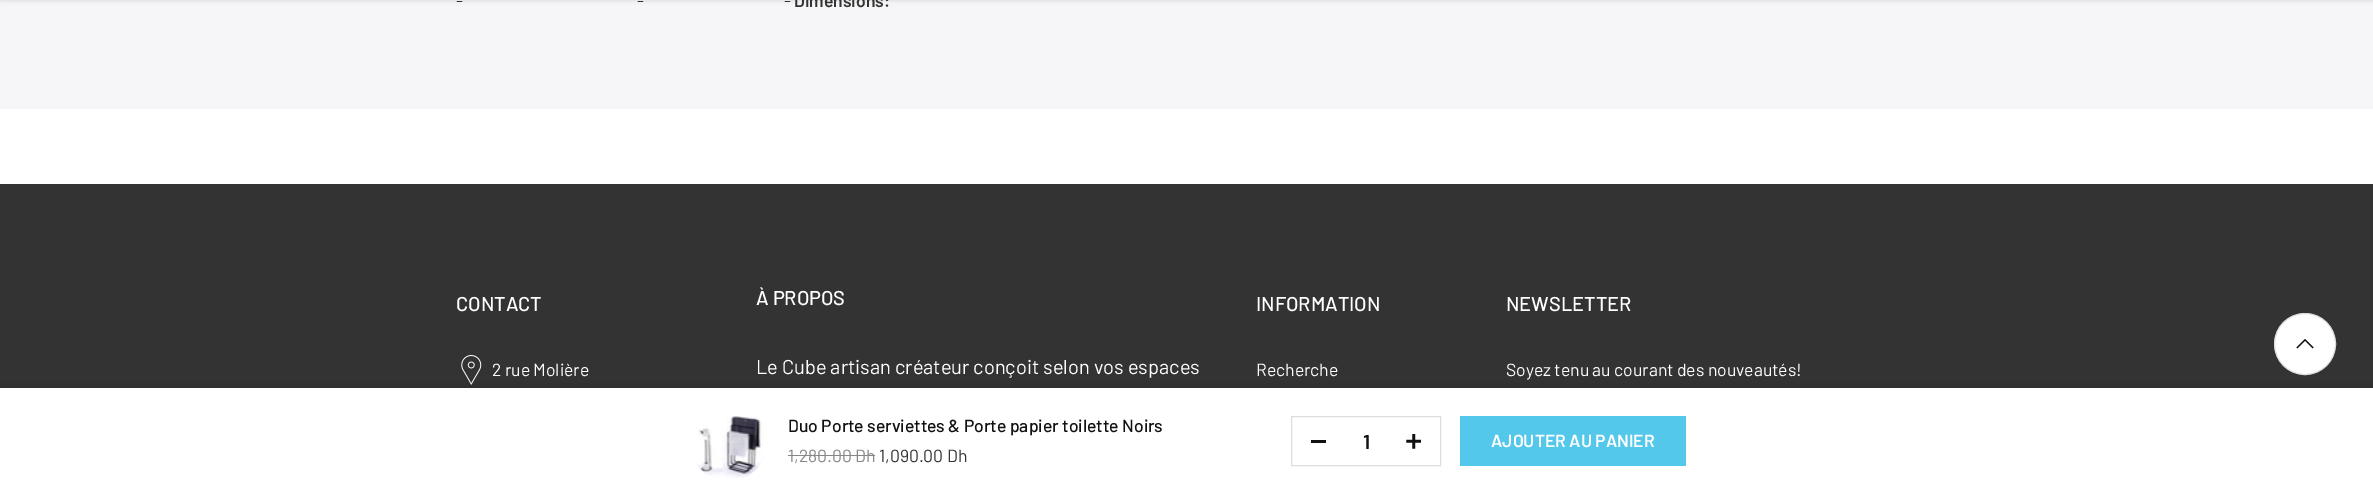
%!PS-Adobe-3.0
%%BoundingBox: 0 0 2373 493
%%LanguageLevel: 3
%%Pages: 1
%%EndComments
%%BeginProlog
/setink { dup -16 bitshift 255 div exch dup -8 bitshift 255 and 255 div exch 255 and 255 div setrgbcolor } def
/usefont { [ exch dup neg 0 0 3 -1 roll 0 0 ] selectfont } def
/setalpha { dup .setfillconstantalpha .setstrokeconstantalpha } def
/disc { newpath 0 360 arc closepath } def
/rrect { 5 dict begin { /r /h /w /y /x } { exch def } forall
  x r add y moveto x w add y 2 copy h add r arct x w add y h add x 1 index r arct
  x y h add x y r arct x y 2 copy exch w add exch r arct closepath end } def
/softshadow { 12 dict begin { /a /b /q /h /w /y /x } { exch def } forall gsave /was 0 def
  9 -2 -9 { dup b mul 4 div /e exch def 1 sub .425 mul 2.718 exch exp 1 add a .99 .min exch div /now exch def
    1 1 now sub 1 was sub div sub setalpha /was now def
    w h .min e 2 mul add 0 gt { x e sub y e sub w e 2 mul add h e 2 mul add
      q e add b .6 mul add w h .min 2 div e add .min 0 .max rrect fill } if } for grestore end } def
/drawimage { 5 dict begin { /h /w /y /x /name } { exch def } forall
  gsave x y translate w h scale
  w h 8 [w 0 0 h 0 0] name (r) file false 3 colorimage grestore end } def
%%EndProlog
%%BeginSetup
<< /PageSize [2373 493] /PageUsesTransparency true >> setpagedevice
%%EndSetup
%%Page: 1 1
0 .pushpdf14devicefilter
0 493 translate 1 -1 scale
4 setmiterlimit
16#FFFFFF setink
0 0 2373 493 rectfill
16#F6F6F8 setink
0 0 2373 109 rectfill
16#000000 setink
0 -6 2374 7 0 2 0.1 softshadow
/Barlow-Regular 17.5 usefont
16#333333 setink
[
    [(-) 456 7]
    [(-) 637 7]
    [(-) 784 7]
] { aload pop moveto show } forall
/Barlow-SemiBold 17.5 usefont
794 7 moveto (Dimensions:) show
0 184 2373 204 rectfill
/Barlow-Medium 20 usefont
16#FFFFFF setink
456 311 moveto (CONTACT) show
(img1.raw) 461 355 21 30 drawimage
/Barlow-Regular 17.5 usefont
492 376 moveto (2 rue Molière) show
/Barlow-Medium 20 usefont
756 305 moveto (À PROPOS) show
/Barlow-Regular 20 usefont
756 374 moveto (Le Cube artisan créateur conçoit selon vos espaces) show
/Barlow-Medium 20 usefont
1256 311 moveto (INFORMATION) show
/Barlow-Regular 17.5 usefont
1256 376 moveto (Recherche) show
/Barlow-Medium 20 usefont
1506 311 moveto (NEWSLETTER) show
/Barlow-Regular 17.5 usefont
1506 376 moveto (Soyez tenu au courant des nouveautés!) show
16#000000 setink
0 388 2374 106 0 5.5 0.12 softshadow
16#FFFFFF setink
2305 344 30.5 disc gsave fill grestore
16#DDDDDD setink
stroke
(img2.raw) 2296 339 18 10 drawimage
16#FFFFFF setink
0 388 2373 105 rectfill
(img3.raw) 696 416 68 62 drawimage
/Barlow-Medium 17.5 usefont
16#111111 setink
788 432 moveto (Duo Porte serviettes & Porte papier toilette Noirs) show
/Barlow-Regular 17.5 usefont
16#878787 setink
788 462 moveto (1,280.00 Dh) show
788 455 87 1 rectfill
16#333333 setink
879 462 moveto (1,090.00 Dh) show
16#DDDDDD setink
1291.5 416.5 149 49 rectstroke
16#111111 setink
1311 440 15 3 rectfill
/Barlow-SemiBold 20 usefont
1363 449 moveto (1) show
(img4.raw) 1406 434 15 15 drawimage
16#54C8EA setink
1460 416 226 50 rectfill
/Barlow-SemiBold 17.5 usefont
16#FFFFFF setink
1491 447 moveto (AJOUTER AU PANIER) show
.poppdf14devicefilter showpage
%%EOF
